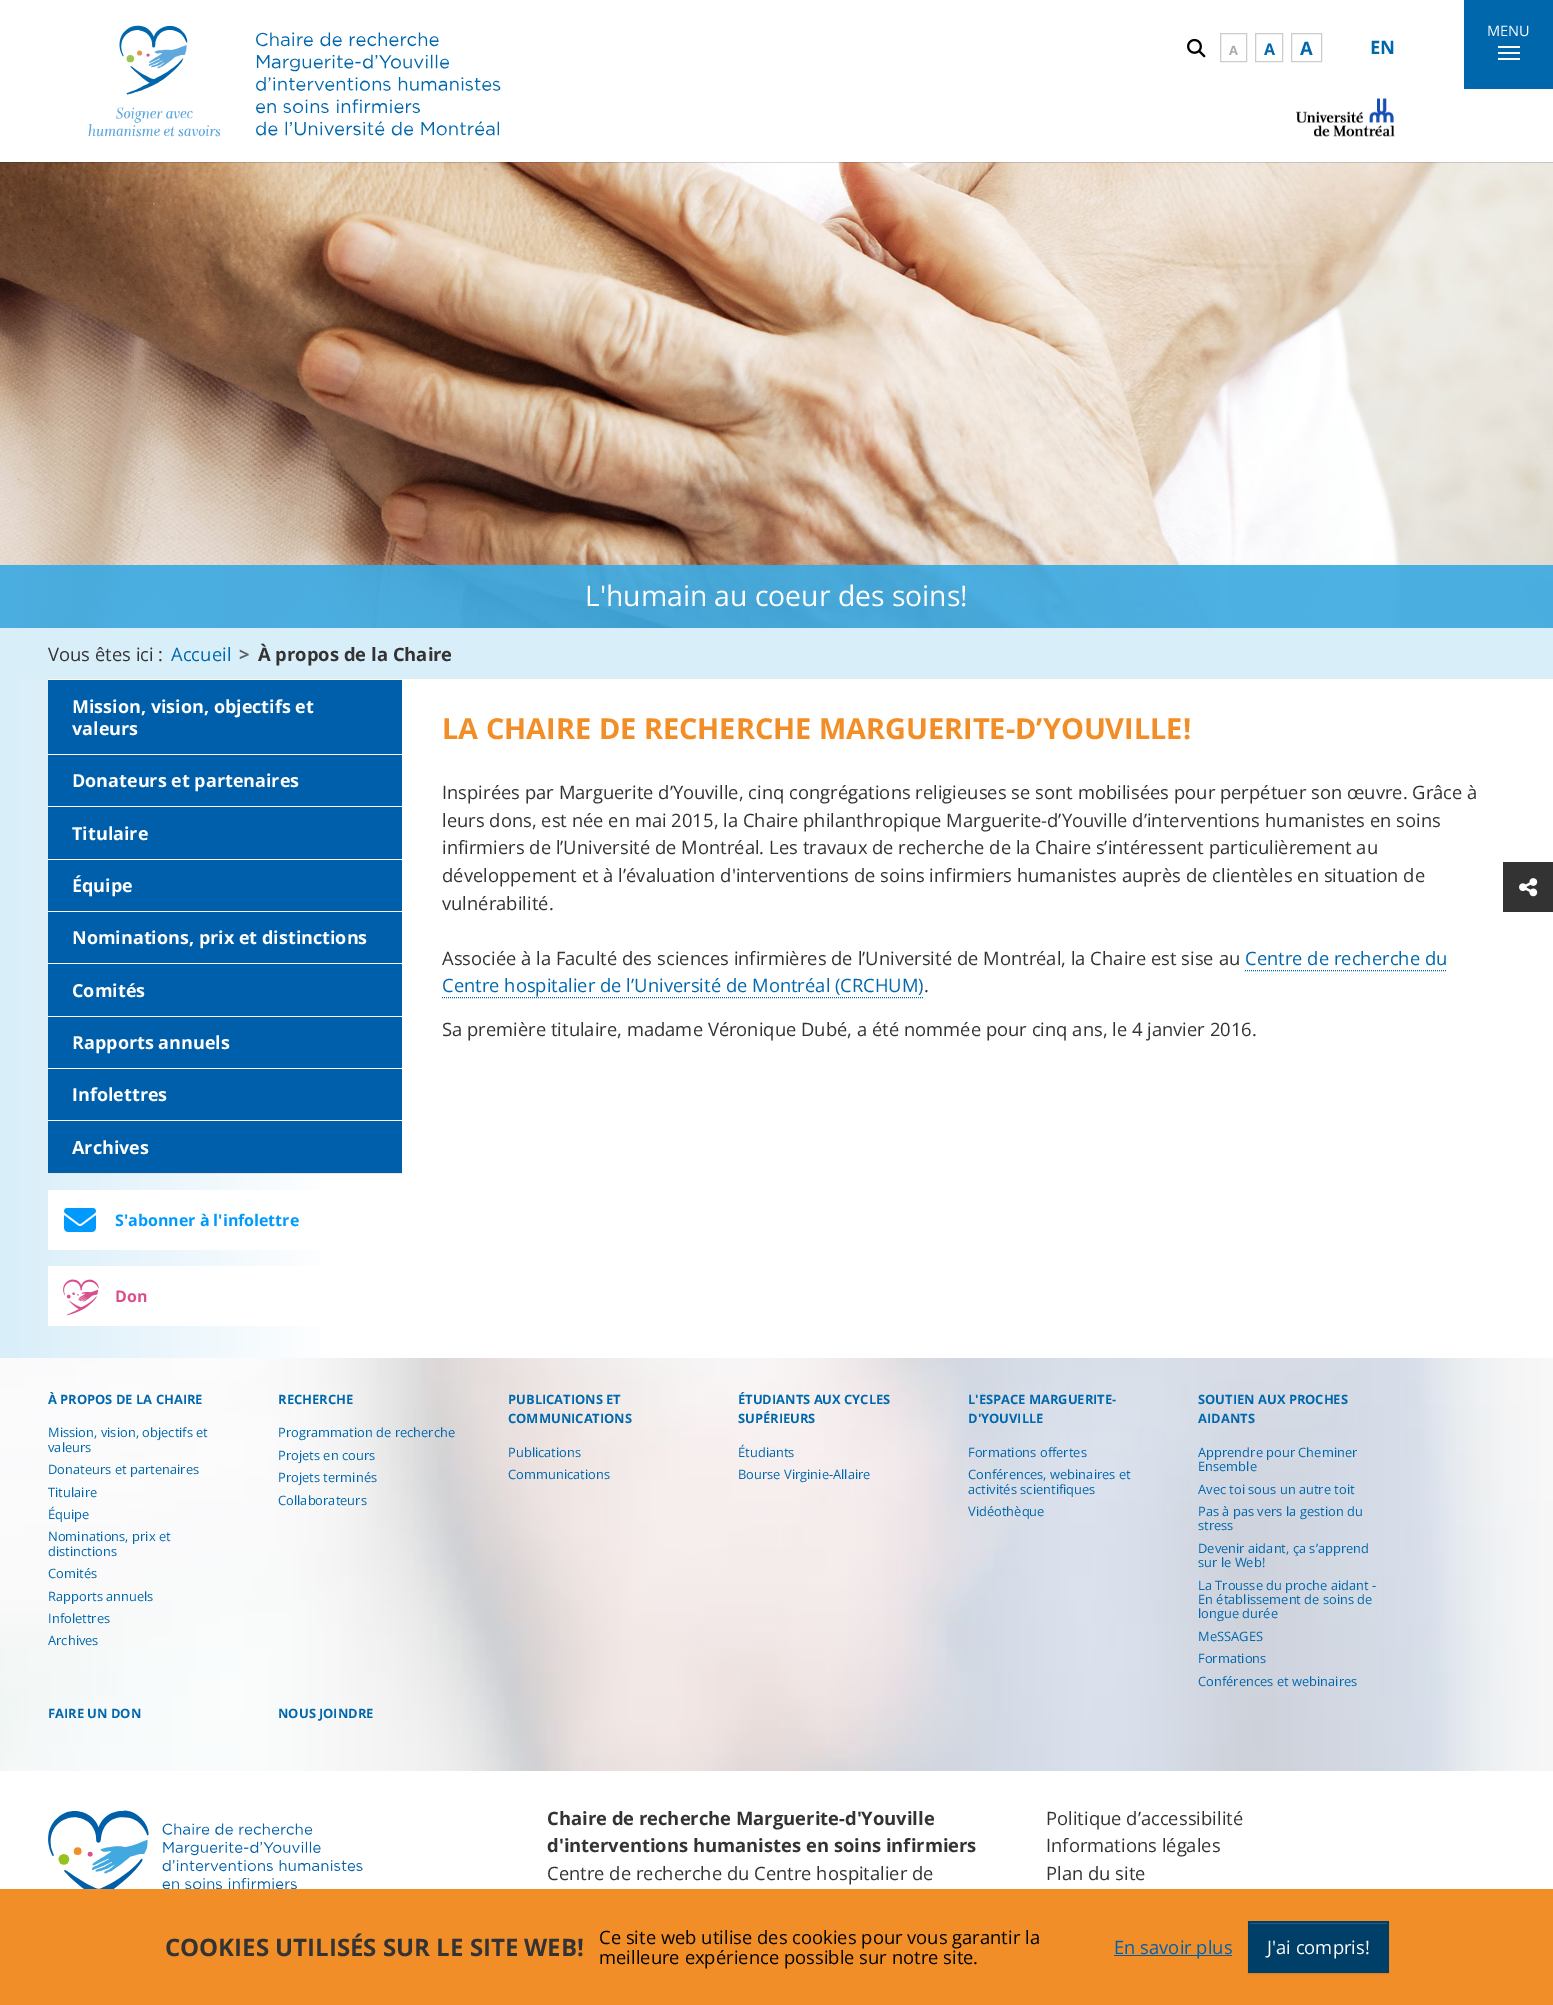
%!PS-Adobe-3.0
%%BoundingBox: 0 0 1553 2005
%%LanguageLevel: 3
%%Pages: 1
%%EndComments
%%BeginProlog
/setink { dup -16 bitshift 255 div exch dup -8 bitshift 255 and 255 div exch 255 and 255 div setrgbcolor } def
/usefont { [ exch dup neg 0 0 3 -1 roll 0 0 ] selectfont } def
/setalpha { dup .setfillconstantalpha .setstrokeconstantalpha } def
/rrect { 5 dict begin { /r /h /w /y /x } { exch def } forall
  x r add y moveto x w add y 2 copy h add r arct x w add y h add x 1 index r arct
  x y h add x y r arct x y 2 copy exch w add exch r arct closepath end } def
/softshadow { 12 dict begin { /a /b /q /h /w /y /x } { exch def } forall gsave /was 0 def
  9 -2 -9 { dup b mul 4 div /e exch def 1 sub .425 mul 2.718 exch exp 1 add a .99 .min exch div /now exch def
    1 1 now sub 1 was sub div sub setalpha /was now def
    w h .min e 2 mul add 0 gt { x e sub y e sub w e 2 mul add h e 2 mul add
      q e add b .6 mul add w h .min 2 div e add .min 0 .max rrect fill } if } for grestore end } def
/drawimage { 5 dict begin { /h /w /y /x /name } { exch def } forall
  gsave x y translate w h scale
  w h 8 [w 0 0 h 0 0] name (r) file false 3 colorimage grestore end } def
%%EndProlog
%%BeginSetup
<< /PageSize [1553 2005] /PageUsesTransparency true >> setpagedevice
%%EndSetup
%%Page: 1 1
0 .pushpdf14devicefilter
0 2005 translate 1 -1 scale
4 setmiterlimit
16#FFFFFF setink
0 0 1553 2005 rectfill
(img4.raw) 0 162 1553 466 drawimage
0.15 setalpha
16#000000 setink
0 162 1553 1 rectfill
1 setalpha
(img1.raw) 88 25 413 112 drawimage
16#0067AC setink
1464 0 89 89 rectfill
/OpenSans-Regular 14.5 usefont
16#FFFFFF setink
1487 36 moveto (MENU) show
[
    [1498 52 22 2 16#FFFFFF]
    [1498 46 22 2 16#FFFFFF]
    [1498 58 22 2 16#FFFFFF]
] { aload pop setink rectfill } forall
(img2.raw) 1187 38 19 20 drawimage
16#CCCCCC setink
1220.5 33.5 26 28 rectstroke
/OpenSans-Bold 12.9 usefont
16#AAAAAA setink
1229 55 moveto (A) show
16#CCCCCC setink
1255.5 33.5 27 28 rectstroke
/OpenSans-Bold 16 usefont
16#0067AC setink
1264 55 moveto (A) show
16#CCCCCC setink
1291.5 33.5 30 28 rectstroke
/OpenSans-Bold 18.4 usefont
16#0067AC setink
1300 55 moveto (A) show
1370 54 moveto (EN) show
(img3.raw) 1295 97 100 40 drawimage
0.92 setalpha
16#3EAAE1 setink
0 565 1553 63 rectfill
/OpenSans-Regular 28.3 usefont
1 setalpha
16#FFFFFF setink
585 606 moveto (L'humain au coeur des soins!) show
16#D8EEF9 setink
0 628 1553 51 rectfill
/OpenSans-Regular 18.4 usefont
16#333333 setink
48 661 moveto (Vous êtes ici :) show
16#0067AC setink
171 661 moveto (Accueil) show
/OpenSans-Bold 18.4 usefont
16#5C6265 setink
239 661 moveto (>) show
16#333333 setink
258 661 moveto (À propos de la Chaire) show
gsave 0 679 moveto 320 679 lineto 320 1358 lineto 0 1358 lineto closepath clip newpath
<< /ShadingType 2 /ColorSpace /DeviceRGB /Coords [0 1019 1553 1019] /Extend [true true] /Function << /FunctionType 3 /Domain [0 1] /Functions [<< /FunctionType 2 /Domain [0 1] /C0 [0.847 0.933 0.976] /C1 [1 1 1] /N 1 >> << /FunctionType 2 /Domain [0 1] /C0 [1 1 1] /C1 [1 1 1] /N 1 >>] /Bounds [0.22] /Encode [0 1 0 1] >> >> shfill grestore
16#005FAB setink
48 680 354 74 rectfill
16#FFFFFF setink
48 679 272 1 rectfill
/OpenSans-Bold 18 usefont
72 713 moveto (Mission, vision, objectifs et) show
72 735 moveto (valeurs) show
16#005FAB setink
48 755 354 51 rectfill
16#FFFFFF setink
48 754 272 1 rectfill
72 787 moveto (Donateurs et partenaires) show
16#005FAB setink
48 807 354 52 rectfill
16#FFFFFF setink
48 806 272 1 rectfill
72 840 moveto (Titulaire) show
16#005FAB setink
48 860 354 51 rectfill
16#FFFFFF setink
48 859 272 1 rectfill
72 892 moveto (Équipe) show
16#005FAB setink
48 912 354 51 rectfill
16#FFFFFF setink
48 911 272 1 rectfill
72 944 moveto (Nominations, prix et distinctions) show
16#005FAB setink
48 964 354 52 rectfill
16#FFFFFF setink
48 963 272 1 rectfill
72 997 moveto (Comités) show
16#005FAB setink
48 1017 354 51 rectfill
16#FFFFFF setink
48 1016 272 1 rectfill
72 1049 moveto (Rapports annuels) show
16#005FAB setink
48 1069 354 51 rectfill
16#FFFFFF setink
48 1068 272 1 rectfill
72 1101 moveto (Infolettres) show
[
    [48 1121 354 52 16#005FAB]
    [48 1120 272 1 16#FFFFFF]
    [48 1173 354 1 16#E6E6E6]
] { aload pop setink rectfill } forall
16#FFFFFF setink
72 1154 moveto (Archives) show
48 1190 272 60 rectfill
(img5.raw) 64 1208 32 24 drawimage
/OpenSans-Bold 16 usefont
16#009AFF setink
115 1226 moveto (S'abonner à l'infolettre) show
16#FFFFFF setink
48 1266 272 60 rectfill
(img6.raw) 63 1279 36 37 drawimage
16#D94E8D setink
115 1302 moveto (Don) show
/OpenSans-Bold 28.9 usefont
16#F28E27 setink
442 739 moveto (LA CHAIRE DE RECHERCHE MARGUERITE-D’YOUVILLE!) show
/OpenSans-Regular 18.4 usefont
16#333333 setink
[
    [(Inspirées par Marguerite d’Youville, cinq congrégations religieuses se sont mobilisées pour perpétuer son œuvre. Grâce à) 442 799]
    [(leurs dons, est née en mai 2015, la Chaire philanthropique Marguerite-d’Youville d’interventions humanistes en soins) 442 827]
    [(infirmiers de l’Université de Montréal. Les travaux de recherche de la Chaire s’intéressent particulièrement au) 442 854]
    [(développement et à l’évaluation d'interventions de soins infirmiers humanistes auprès de clientèles en situation de) 442 882]
    [(vulnérabilité.) 442 910]
    [(Associée à la Faculté des sciences infirmières de l’Université de Montréal, la Chaire est sise au) 442 965]
] { aload pop moveto show } forall
16#0067AC setink
1245 965 moveto (Centre de recherche du) show
[1 1] 0 setdash
1245 970.5 moveto 1447 970.5 lineto stroke
442 992 moveto (Centre hospitalier de l’Université de Montréal \(CRCHUM\)) show
442 997.5 moveto 924 997.5 lineto stroke
16#333333 setink
924 992 moveto (.) show
442 1036 moveto (Sa première titulaire, madame Véronique Dubé, a été nommée pour cinq ans, le 4 janvier 2016.) show
1503 862 50 50 rectfill
(img7.raw) 1519 878 19 19 drawimage
(img8.raw) 0 1358 1553 413 drawimage
/OpenSans-Bold 12.9 usefont
16#0067AC setink
48 1404 moveto (À PROPOS DE LA CHAIRE) show
/OpenSans-Regular 12.9 usefont
[
    [(Mission, vision, objectifs et) 48 1437]
    [(valeurs) 48 1452]
    [(Donateurs et partenaires) 48 1474]
    [(Titulaire) 48 1497]
    [(Équipe) 48 1519]
    [(Nominations, prix et) 48 1541]
    [(distinctions) 48 1556]
    [(Comités) 48 1578]
    [(Rapports annuels) 48 1601]
    [(Infolettres) 48 1623]
    [(Archives) 48 1645]
] { aload pop moveto show } forall
/OpenSans-Bold 12.9 usefont
278 1404 moveto (RECHERCHE) show
/OpenSans-Regular 12.9 usefont
[
    [(Programmation de recherche) 278 1437]
    [(Projets en cours) 278 1460]
    [(Projets terminés) 278 1482]
    [(Collaborateurs) 278 1505]
] { aload pop moveto show } forall
/OpenSans-Bold 12.9 usefont
508 1404 moveto (PUBLICATIONS ET) show
508 1423 moveto (COMMUNICATIONS) show
/OpenSans-Regular 12.9 usefont
508 1457 moveto (Publications) show
508 1479 moveto (Communications) show
/OpenSans-Bold 12.9 usefont
738 1404 moveto (ÉTUDIANTS AUX CYCLES) show
738 1423 moveto (SUPÉRIEURS) show
/OpenSans-Regular 12.9 usefont
738 1457 moveto (Étudiants) show
738 1479 moveto (Bourse Virginie-Allaire) show
/OpenSans-Bold 12.9 usefont
968 1404 moveto (L'ESPACE MARGUERITE-) show
968 1423 moveto (D'YOUVILLE) show
/OpenSans-Regular 12.9 usefont
[
    [(Formations offertes) 968 1457]
    [(Conférences, webinaires et) 968 1479]
    [(activités scientifiques) 968 1494]
    [(Vidéothèque) 968 1516]
] { aload pop moveto show } forall
/OpenSans-Bold 12.9 usefont
1198 1404 moveto (SOUTIEN AUX PROCHES) show
1198 1423 moveto (AIDANTS) show
/OpenSans-Regular 12.9 usefont
[
    [(Apprendre pour Cheminer) 1198 1457]
    [(Ensemble) 1198 1471]
    [(Avec toi sous un autre toit) 1198 1494]
    [(Pas à pas vers la gestion du) 1198 1516]
    [(stress) 1198 1530]
    [(Devenir aidant, ça s’apprend) 1198 1553]
    [(sur le Web!) 1198 1567]
    [(La Trousse du proche aidant -) 1198 1590]
    [(En établissement de soins de) 1198 1604]
    [(longue durée) 1198 1618]
    [(MeSSAGES) 1198 1641]
    [(Formations) 1198 1663]
    [(Conférences et webinaires) 1198 1686]
] { aload pop moveto show } forall
/OpenSans-Bold 12.9 usefont
48 1718 moveto (FAIRE UN DON) show
278 1718 moveto (NOUS JOINDRE) show
(img9.raw) 48 1810 315 79 drawimage
/OpenSans-Bold 18.4 usefont
16#333333 setink
547 1825 moveto (Chaire de recherche Marguerite-d'Youville) show
547 1852 moveto (d'interventions humanistes en soins infirmiers) show
/OpenSans-Regular 18.4 usefont
[
    [(Centre de recherche du Centre hospitalier de) 547 1880]
    [(Politique d’accessibilité) 1046 1825]
    [(Informations légales) 1046 1852]
    [(Plan du site) 1046 1880]
] { aload pop moveto show } forall
16#F28E27 setink
0 1889 1553 116 rectfill
/OpenSans-Bold 24 usefont
16#333333 setink
165 1956 moveto (COOKIES UTILISÉS SUR LE SITE WEB!) show
/OpenSans-Regular 18.4 usefont
16#000000 setink
599 1944 moveto (Ce site web utilise des cookies pour vous garantir la) show
599 1964 moveto (meilleure expérience possible sur notre site.) show
16#005FAB setink
1114 1955 118 1 rectfill
1114 1954 moveto (En savoir plus) show
16#000000 setink
1248 1922 141 52 0 0.5 0.07 softshadow
16#003F68 setink
1248 1921 141 52 rectfill
16#265C7F setink
1250 1923 137 1 rectfill
16#FFFFFF setink
1267 1954 moveto (J'ai compris!) show
.poppdf14devicefilter showpage
%%EOF
